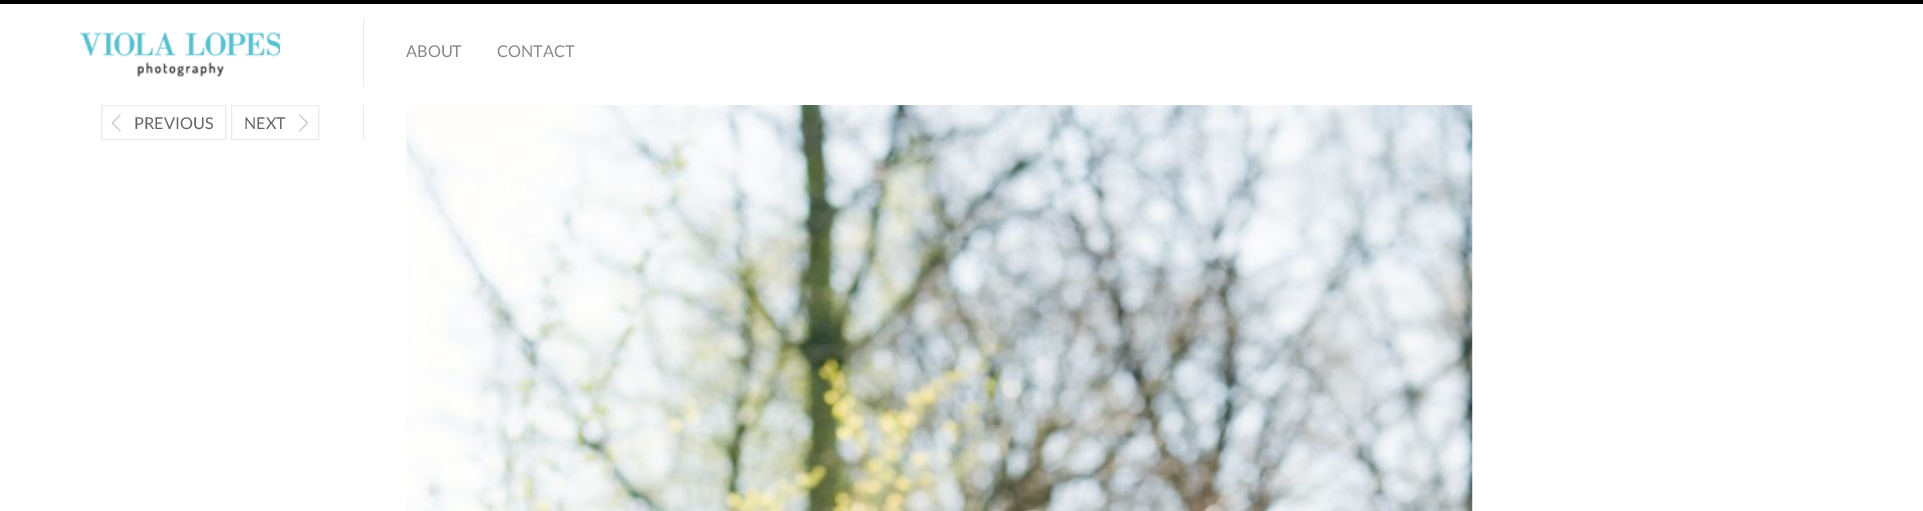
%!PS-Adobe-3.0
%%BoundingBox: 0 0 1923 511
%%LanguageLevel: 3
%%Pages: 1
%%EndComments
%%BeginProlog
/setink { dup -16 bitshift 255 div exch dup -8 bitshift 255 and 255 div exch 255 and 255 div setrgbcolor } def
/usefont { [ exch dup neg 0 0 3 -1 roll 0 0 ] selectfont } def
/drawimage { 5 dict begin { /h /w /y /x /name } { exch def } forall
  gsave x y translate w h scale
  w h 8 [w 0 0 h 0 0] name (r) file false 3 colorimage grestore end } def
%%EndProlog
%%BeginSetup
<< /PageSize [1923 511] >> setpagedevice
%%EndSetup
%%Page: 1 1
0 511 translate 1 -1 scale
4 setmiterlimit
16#FFFFFF setink
0 0 1923 511 rectfill
16#000000 setink
0 0 1923 4 rectfill
16#EBEBEB setink
363 19 1 67 rectfill
(img1.raw) 80 32 201 45 drawimage
/Lato-Regular 16.25 usefont
16#888888 setink
406 57 moveto (ABOUT) show
497 57 moveto (CONTACT) show
16#EBEBEB setink
363 105 1 35 rectfill
16#EAEAEA setink
101.5 105.5 124 34 rectstroke
(img2.raw) 111 114 10 18 drawimage
16#666666 setink
134 129 moveto (PREVIOUS) show
16#EAEAEA setink
231.5 105.5 87 34 rectstroke
16#666666 setink
244 129 moveto (NEXT) show
(img3.raw) 299 114 10 18 drawimage
(img4.raw) 406 105 1067 406 drawimage
showpage
%%EOF
